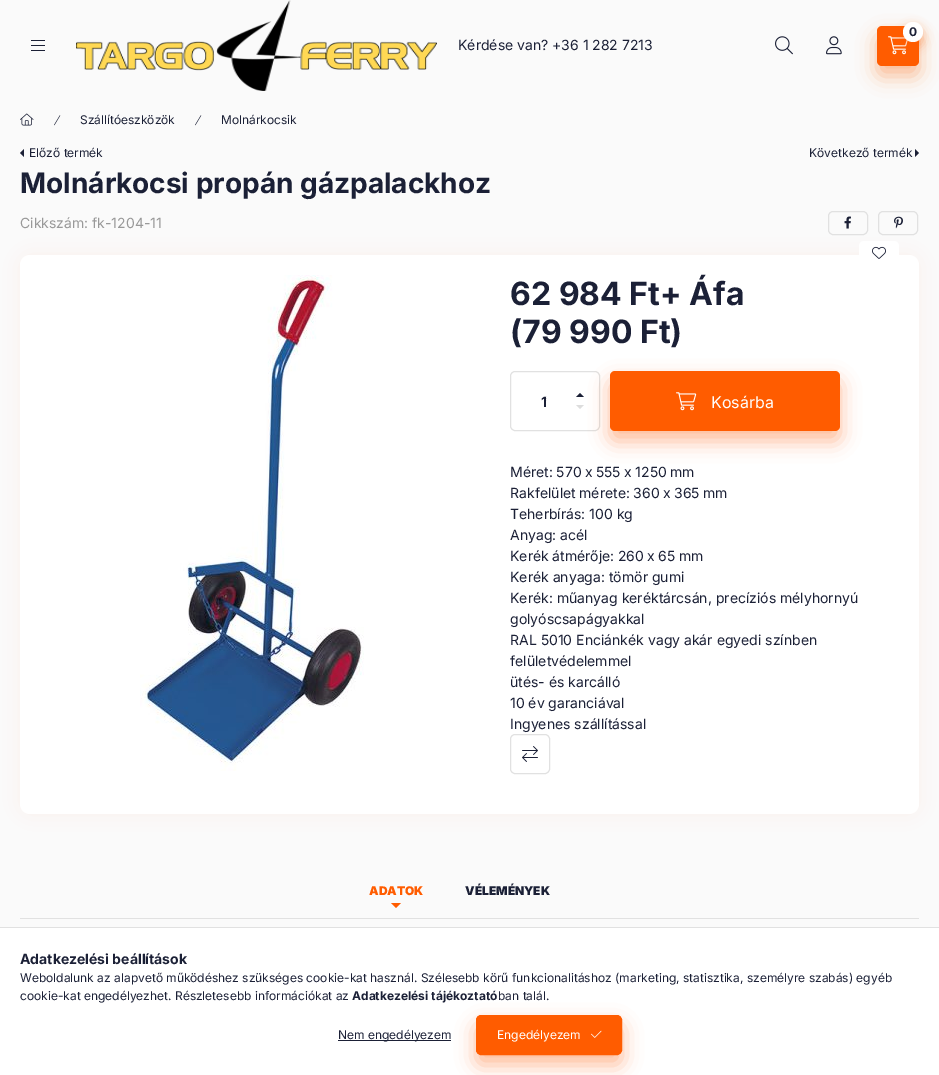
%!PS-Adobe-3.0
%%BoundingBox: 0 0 939 1075
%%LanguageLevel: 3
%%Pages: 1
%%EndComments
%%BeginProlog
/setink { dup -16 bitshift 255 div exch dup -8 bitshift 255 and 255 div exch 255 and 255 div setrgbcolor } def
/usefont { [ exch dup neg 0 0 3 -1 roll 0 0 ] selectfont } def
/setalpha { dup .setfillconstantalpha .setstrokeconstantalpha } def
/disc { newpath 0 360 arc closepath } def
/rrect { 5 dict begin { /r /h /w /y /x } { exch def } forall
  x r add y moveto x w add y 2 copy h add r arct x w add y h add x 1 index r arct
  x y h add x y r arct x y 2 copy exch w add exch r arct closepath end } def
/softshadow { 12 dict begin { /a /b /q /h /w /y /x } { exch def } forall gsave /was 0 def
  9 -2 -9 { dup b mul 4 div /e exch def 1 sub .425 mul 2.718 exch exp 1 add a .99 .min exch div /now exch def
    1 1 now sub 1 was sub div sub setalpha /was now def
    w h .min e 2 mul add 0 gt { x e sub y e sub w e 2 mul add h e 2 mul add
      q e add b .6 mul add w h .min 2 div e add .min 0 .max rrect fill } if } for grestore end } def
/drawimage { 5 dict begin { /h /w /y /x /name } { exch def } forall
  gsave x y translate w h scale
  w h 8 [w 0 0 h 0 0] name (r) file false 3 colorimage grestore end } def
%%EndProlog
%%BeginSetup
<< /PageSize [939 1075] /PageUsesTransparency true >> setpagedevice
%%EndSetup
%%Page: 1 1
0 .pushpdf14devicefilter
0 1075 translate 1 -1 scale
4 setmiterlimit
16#FAFAFA setink
0 0 939 1075 rectfill
16#FF5C00 setink
877 36 42 40 5 10 0.4 softshadow
877 26 42 40 5 rrect fill
(img1.raw) 888 36 20 19 drawimage
903 27 20 20 10 5 0.4 softshadow
16#FFFFFF setink
913 32 10 disc fill
/Inter-Bold 12 usefont
16#1B2036 setink
909 36 moveto (0) show
(img2.raw) 775 36 18 19 drawimage
(img3.raw) 826 36 16 19 drawimage
[
    [31 40 14 1 16#1B2036]
    [31 45 14 1 16#1B2036]
    [31 50 14 1 16#1B2036]
] { aload pop setink rectfill } forall
(img4.raw) 76 0 361 91 drawimage
/Inter-Regular 14 usefont
458 50 moveto (Kérdése van? +36 1 282 7213) show
(img5.raw) 20 113 14 13 drawimage
(img6.raw) 54 115 7 11 drawimage
/Inter-Regular 12 usefont
80 124 moveto (Szállítóeszközök) show
(img6.raw) 195 115 7 11 drawimage
221 124 moveto (Molnárkocsik) show
24 157 moveto 24 149 lineto 20 153 lineto closepath fill
29 157 moveto (Előző termék) show
809 157 moveto (Következő termék) show
915 157 moveto 915 149 lineto 919 153 lineto closepath fill
/Inter-Bold 28 usefont
20 193 moveto (Molnárkocsi propán gázpalackhoz) show
/Inter-Regular 14 usefont
16#999999 setink
20 228 moveto (Cikkszám: fk-1204-11) show
16#E1E1E1 setink
828.5 211.5 39 23 4.5 rrect stroke
(img7.raw) 844 216 7 13 drawimage
878.5 211.5 39 23 4.5 rrect stroke
(img8.raw) 894 216 9 13 drawimage
16#FF5C00 setink
20 255 899 559 10 10 0.05 softshadow
16#FFFFFF setink
20 255 899 559 10 rrect fill
859 241 40 24 5 rrect fill
(img9.raw) 872 246 14 13 drawimage
(img10.raw) 140 275 224 496 drawimage
/Inter-Bold 32 usefont
16#1B2036 setink
510 305 moveto (62 984 Ft+ Áfa) show
510 343 moveto (\(79 990 Ft\)) show
16#E1E1E1 setink
510.5 371.5 89 59 4.5 rrect stroke
/Inter-Bold 14 usefont
16#1B2036 setink
541 407 moveto (1) show
584 397 moveto 576 397 lineto 580 393 lineto closepath fill
16#DDDDDD setink
576 405 moveto 584 405 lineto 580 409 lineto closepath fill
16#FF5C00 setink
610 381 230 60 5 10 0.4 softshadow
610 371 230 60 5 rrect fill
(img11.raw) 676 392 21 19 drawimage
/Inter-Regular 16 usefont
16#FFFFFF setink
711 408 moveto (Kosárba) show
/Inter-Regular 14 usefont
16#1B2036 setink
510 477 moveto -0.5 0 32 (Méret: 570 x 555 x 1250 mm) widthshow
510 498 moveto -0.5 0 32 (Rakfelület mérete: 360 x 365 mm) widthshow
510 519 moveto (Teherbírás: 100 kg) show
510 540 moveto (Anyag: acél) show
510 561 moveto -0.5 0 32 (Kerék átmérője: 260 x 65 mm) widthshow
[
    [(Kerék anyaga: tömör gumi) 510 582]
    [(Kerék: műanyag keréktárcsán, precíziós mélyhornyú) 510 603]
    [(golyóscsapágyakkal) 510 624]
    [(RAL 5010 Enciánkék vagy akár egyedi színben) 510 645]
    [(felületvédelemmel) 510 666]
    [(ütés- és karcálló) 510 687]
    [(10 év garanciával) 510 708]
    [(Ingyenes szállítással) 510 729]
] { aload pop moveto show } forall
16#E1E1E1 setink
510.5 734.5 39 39 4.5 rrect stroke
(img12.raw) 522 746 16 16 drawimage
20 918 899 1 rectfill
/Inter-Black 12 usefont
16#FF5C00 setink
369 895 moveto (ADATOK) show
391 903 moveto 401 903 lineto 396 908 lineto closepath fill
16#1B2036 setink
465 895 moveto (VÉLEMÉNYEK) show
16#FFFFFF setink
0 928 939 147 rectfill
16#E1E1E1 setink
0 927 939 1 rectfill
/Inter-Bold 14 usefont
16#1B2036 setink
20 964 moveto (Adatkezelési beállítások) show
/Inter-Regular 12 usefont
20 982 moveto (Weboldalunk az alapvető működéshez szükséges cookie-kat használ. Szélesebb körű funkcionalitáshoz \(marketing, statisztika, személyre szabás\) egyéb) show
20 1000 moveto (cookie-kat engedélyezhet. Részletesebb információkat az) show
/Inter-Bold 12 usefont
352 1000 moveto (Adatkezelési tájékoztató) show
/Inter-Regular 12 usefont
498 1000 moveto (ban talál.) show
338 1040 113 1 rectfill
338 1039 moveto (Nem engedélyezem) show
16#FF5C00 setink
476 1025 146 40 5 10 0.4 softshadow
476.5 1015.5 145 39 4.5 rrect gsave fill grestore
stroke
16#FFFFFF setink
497 1039 moveto (Engedélyezem) show
(img13.raw) 591 1030 11 8 drawimage
.poppdf14devicefilter showpage
%%EOF
